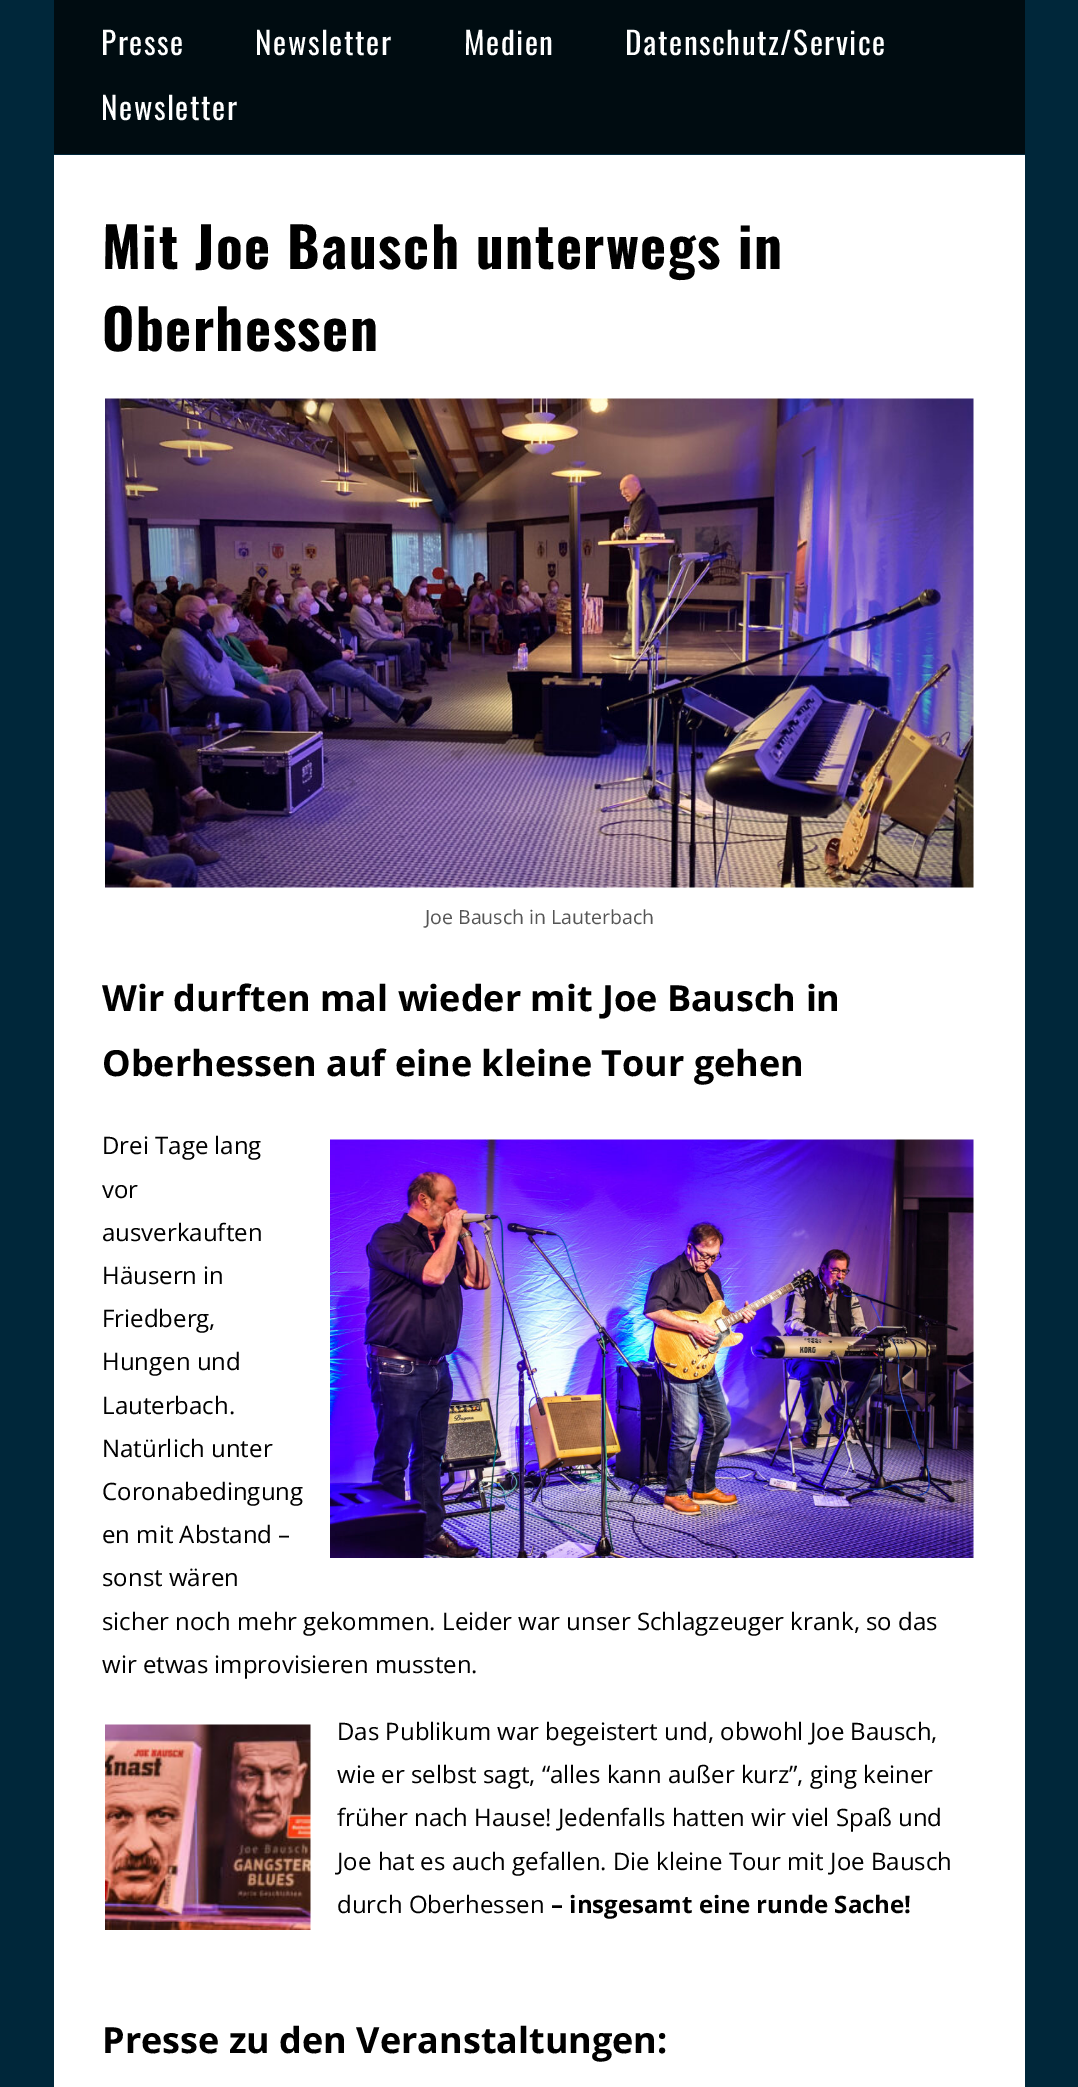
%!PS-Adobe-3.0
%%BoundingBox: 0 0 1078 2087
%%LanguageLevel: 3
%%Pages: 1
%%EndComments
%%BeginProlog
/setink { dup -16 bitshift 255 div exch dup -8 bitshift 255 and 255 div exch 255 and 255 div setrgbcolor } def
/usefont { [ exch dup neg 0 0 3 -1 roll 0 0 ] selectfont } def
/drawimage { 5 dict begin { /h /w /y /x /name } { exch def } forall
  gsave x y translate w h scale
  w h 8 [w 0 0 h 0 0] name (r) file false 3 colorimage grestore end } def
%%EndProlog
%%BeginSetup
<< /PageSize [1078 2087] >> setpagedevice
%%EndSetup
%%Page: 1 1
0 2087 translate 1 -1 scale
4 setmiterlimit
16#00273A setink
0 0 1078 2087 rectfill
16#000C11 setink
54 0 971 154 rectfill
/Oswald-Regular 31.25 usefont
16#FFFFFF setink
101 55 moveto 1.5 0 (Presse) ashow
255 55 moveto 1.5 0 (Newsletter) ashow
464 55 moveto 1.5 0 (Medien) ashow
625 55 moveto 1.5 0 (Datenschutz/Service) ashow
101 120 moveto 1.5 0 (Newsletter) ashow
54 155 971 1932 rectfill
/Oswald-Bold 55.25 usefont
16#000000 setink
102 269 moveto 1.5 0 (Mit Joe Bausch unterwegs in) ashow
102 351 moveto 1.5 0 (Oberhessen) ashow
(img1.raw) 105 398 869 490 drawimage
/OpenSans-Regular 19.5 usefont
16#555555 setink
425 924 moveto (Joe Bausch in Lauterbach) show
/OpenSans-Bold 36 usefont
16#000000 setink
102 1011 moveto (Wir durften mal wieder mit Joe Bausch in) show
102 1076 moveto (Oberhessen auf eine kleine Tour gehen) show
/OpenSans-Regular 24 usefont
[
    [(Drei Tage lang) 102 1154]
    [(vor) 102 1198]
    [(ausverkauften) 102 1241]
    [(Häusern in) 102 1284]
    [(Friedberg,) 102 1327]
    [(Hungen und) 102 1370]
    [(Lauterbach.) 102 1414]
    [(Natürlich unter) 102 1457]
    [(Coronabedingung) 102 1500]
    [(en mit Abstand –) 102 1543]
    [(sonst wären) 102 1586]
    [(sicher noch mehr gekommen. Leider war unser Schlagzeuger krank, so das) 102 1630]
    [(wir etwas improvisieren mussten.) 102 1673]
] { aload pop moveto show } forall
(img2.raw) 330 1139 644 419 drawimage
(img3.raw) 105 1724 206 206 drawimage
[
    [(Das Publikum war begeistert und, obwohl Joe Bausch,) 337 1740]
    [(wie er selbst sagt, “alles kann außer kurz”, ging keiner) 337 1783]
    [(früher nach Hause! Jedenfalls hatten wir viel Spaß und) 337 1826]
    [(Joe hat es auch gefallen. Die kleine Tour mit Joe Bausch) 337 1870]
    [(durch Oberhessen) 337 1913]
] { aload pop moveto show } forall
/OpenSans-Bold 24 usefont
551 1913 moveto (– insgesamt eine runde Sache!) show
/OpenSans-Bold 36 usefont
102 2053 moveto (Presse zu den Veranstaltungen:) show
showpage
%%EOF
